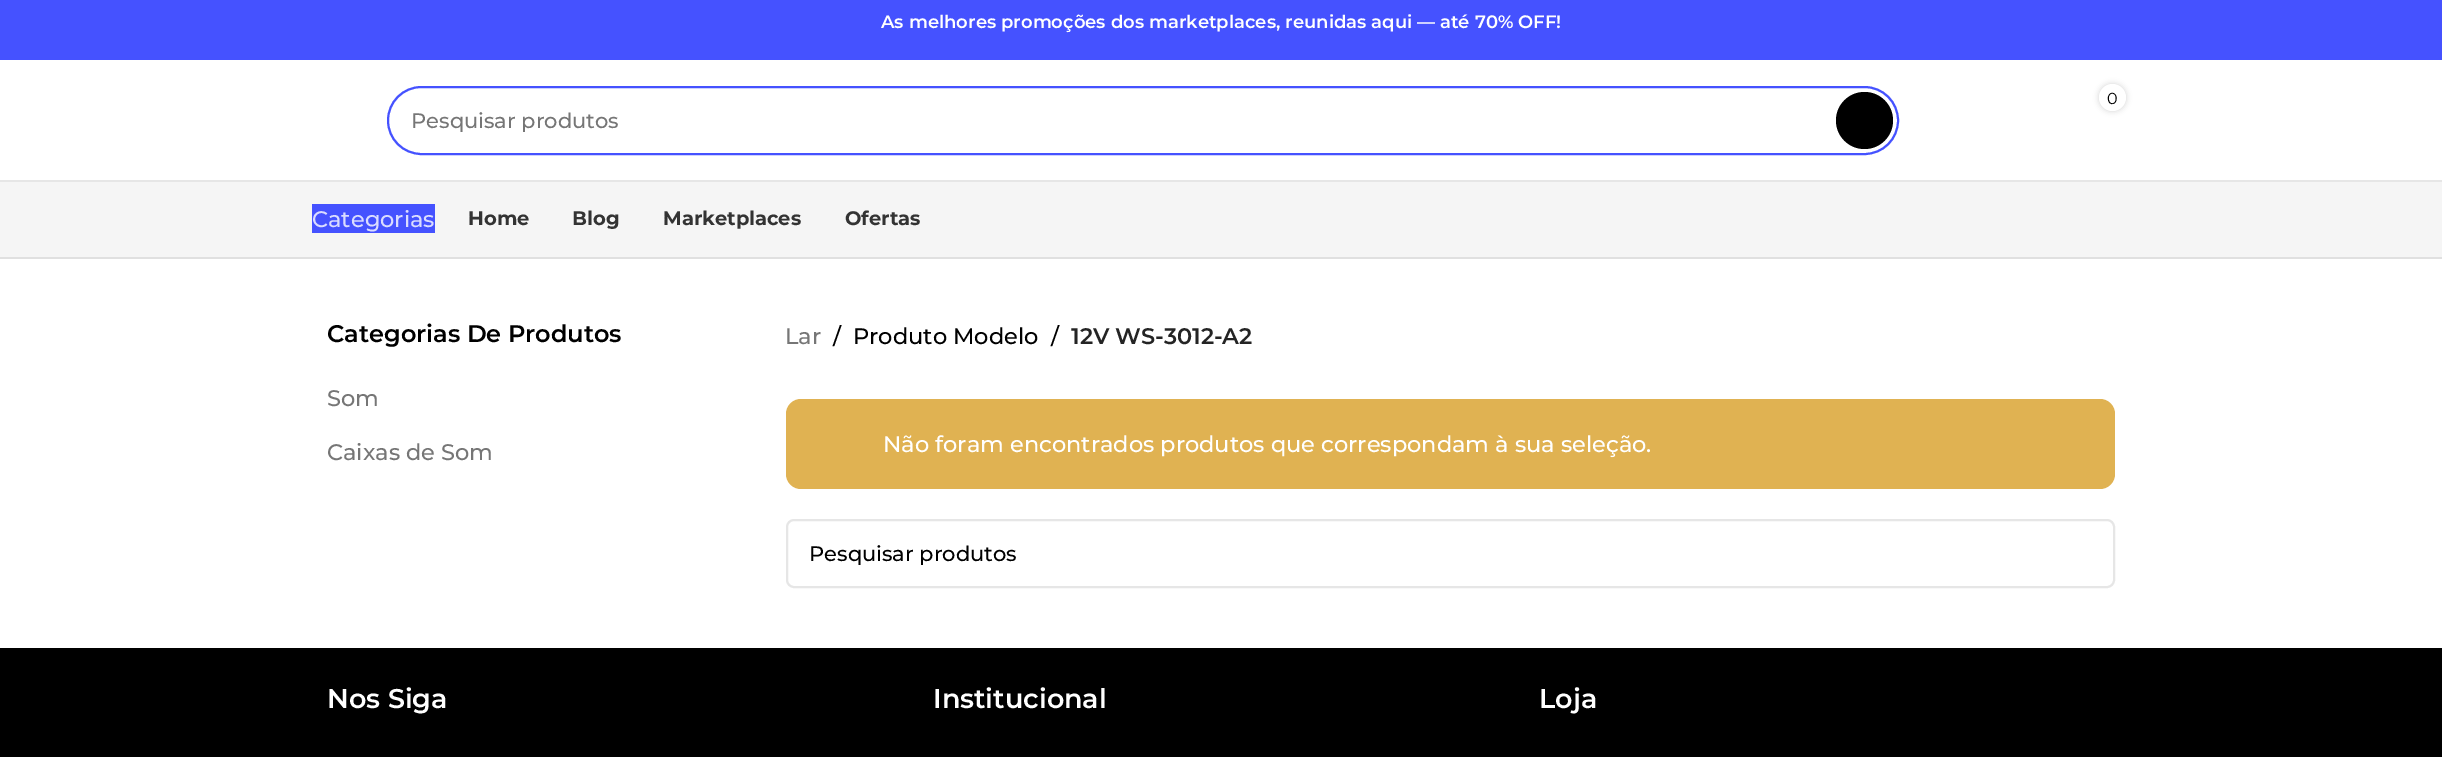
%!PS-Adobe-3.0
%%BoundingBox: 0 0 2442 757
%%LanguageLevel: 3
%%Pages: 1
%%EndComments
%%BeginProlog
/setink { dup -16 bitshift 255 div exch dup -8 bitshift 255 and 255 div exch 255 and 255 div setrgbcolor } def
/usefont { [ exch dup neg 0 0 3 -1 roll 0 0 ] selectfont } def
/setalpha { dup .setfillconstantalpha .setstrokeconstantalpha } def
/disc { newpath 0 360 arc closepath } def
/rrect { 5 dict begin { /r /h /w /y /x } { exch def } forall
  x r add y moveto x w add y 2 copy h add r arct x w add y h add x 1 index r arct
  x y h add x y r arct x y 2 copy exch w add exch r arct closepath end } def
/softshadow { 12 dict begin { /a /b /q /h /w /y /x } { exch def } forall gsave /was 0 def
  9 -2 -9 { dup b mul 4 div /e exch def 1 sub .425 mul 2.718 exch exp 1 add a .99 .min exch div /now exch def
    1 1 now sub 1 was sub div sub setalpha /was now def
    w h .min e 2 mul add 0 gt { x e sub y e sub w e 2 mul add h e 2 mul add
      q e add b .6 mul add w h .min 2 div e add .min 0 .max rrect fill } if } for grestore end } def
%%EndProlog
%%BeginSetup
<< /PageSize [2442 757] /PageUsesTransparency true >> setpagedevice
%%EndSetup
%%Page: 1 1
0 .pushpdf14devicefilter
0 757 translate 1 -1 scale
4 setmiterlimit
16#FFFFFF setink
0 0 2442 757 rectfill
16#4552FF setink
0 0 2442 60 rectfill
/Montserrat-SemiBold 18 usefont
16#FFFFFF setink
881 28 moveto (As melhores promoções dos marketplaces, reunidas aqui — até 70% OFF!) show
16#E6E6E6 setink
0 180 2442 2 rectfill
16#000000 setink
2099 84 27 27 13.5 3 0.17 softshadow
16#FFFFFF setink
2112.5 97.5 13.5 disc fill
/Montserrat-Regular 16 usefont
16#000000 setink
2107 104 moveto (0) show
16#4552FF setink
2 setlinewidth
388 87 1510 67 33.5 rrect stroke
/Montserrat-Medium 21 usefont
16#767676 setink
411 128 moveto (Pesquisar produtos) show
16#000000 setink
1864.5 120.5 28.5 disc fill
[
    [0 182 2442 75 16#F5F5F5]
    [0 257 2442 2 16#E0E0E0]
    [312 204 123 29 16#4552FF]
] { aload pop setink rectfill } forall
/Montserrat-Medium 22.5 usefont
16#DADCFF setink
312 227 moveto (Categorias) show
/Montserrat-Bold 19.5 usefont
16#333333 setink
[
    [(Home) 468 225]
    [(Blog) 572 225]
    [(Marketplaces) 663 225]
    [(Ofertas) 845 225]
] { aload pop moveto show } forall
/Montserrat-SemiBold 24 usefont
16#000000 setink
327 342 moveto (Categorias De Produtos) show
/Montserrat-Medium 22.5 usefont
16#767676 setink
[
    [(Som) 327 406]
    [(Caixas de Som) 327 460]
    [(Lar) 785 344]
] { aload pop moveto show } forall
16#000000 setink
[
    [(/) 833 344]
    [(Produto Modelo) 853 344]
    [(/) 1051 344]
] { aload pop moveto show } forall
/Montserrat-SemiBold 22.5 usefont
16#242424 setink
1071 344 moveto (12V WS-3012-A2) show
16#E0B252 setink
786 399 1329 90 15 rrect fill
/Montserrat-Medium 22.5 usefont
16#FFFFFF setink
883 452 moveto (Não foram encontrados produtos que correspondam à sua seleção.) show
16#E6E6E6 setink
787 520 1327 67 7 rrect stroke
/Montserrat-Medium 21 usefont
16#000000 setink
809 561 moveto (Pesquisar produtos) show
0 648 2442 109 rectfill
/Montserrat-SemiBold 27 usefont
16#FFFFFF setink
[
    [(Nos Siga) 327 708]
    [(Institucional) 933 708]
    [(Loja) 1539 708]
] { aload pop moveto show } forall
.poppdf14devicefilter showpage
%%EOF
